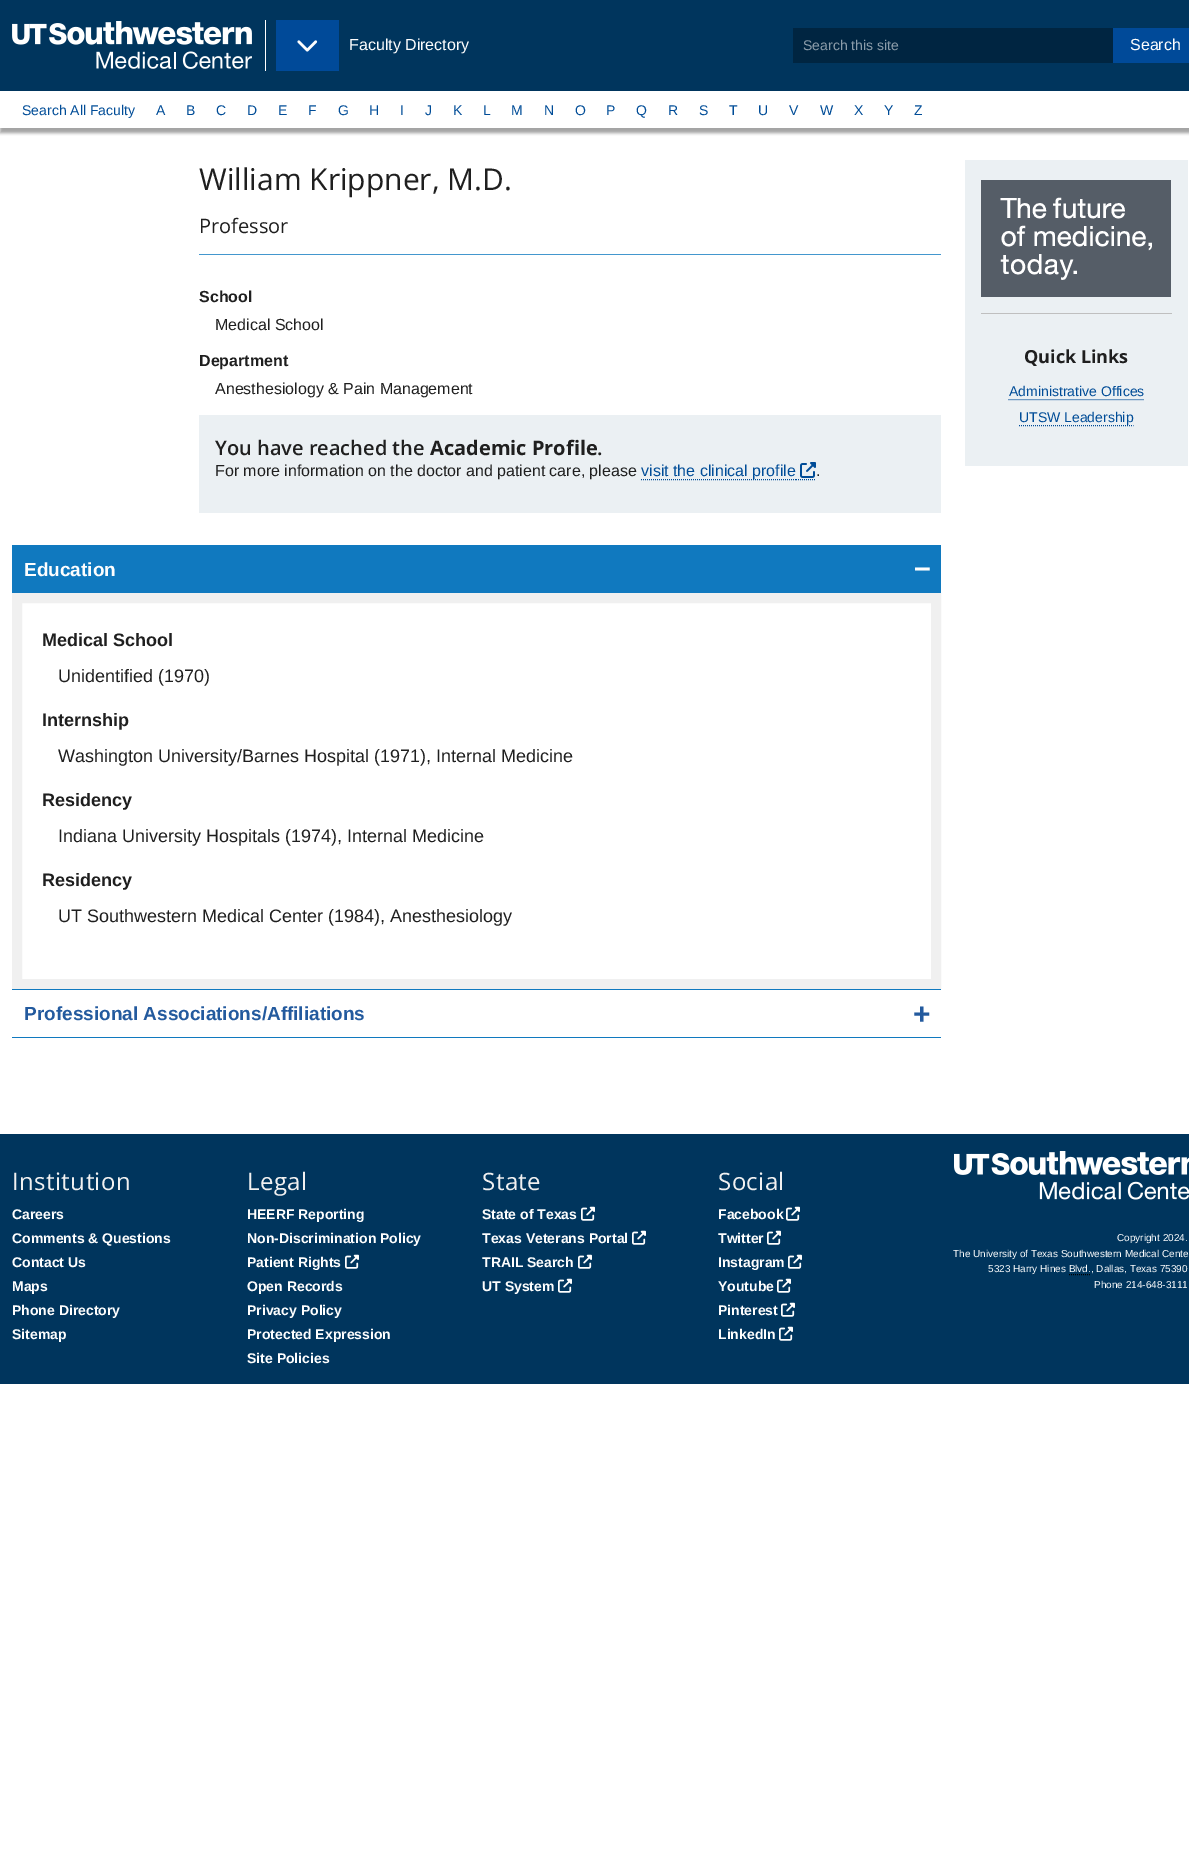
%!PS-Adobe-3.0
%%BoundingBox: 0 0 1189 1859
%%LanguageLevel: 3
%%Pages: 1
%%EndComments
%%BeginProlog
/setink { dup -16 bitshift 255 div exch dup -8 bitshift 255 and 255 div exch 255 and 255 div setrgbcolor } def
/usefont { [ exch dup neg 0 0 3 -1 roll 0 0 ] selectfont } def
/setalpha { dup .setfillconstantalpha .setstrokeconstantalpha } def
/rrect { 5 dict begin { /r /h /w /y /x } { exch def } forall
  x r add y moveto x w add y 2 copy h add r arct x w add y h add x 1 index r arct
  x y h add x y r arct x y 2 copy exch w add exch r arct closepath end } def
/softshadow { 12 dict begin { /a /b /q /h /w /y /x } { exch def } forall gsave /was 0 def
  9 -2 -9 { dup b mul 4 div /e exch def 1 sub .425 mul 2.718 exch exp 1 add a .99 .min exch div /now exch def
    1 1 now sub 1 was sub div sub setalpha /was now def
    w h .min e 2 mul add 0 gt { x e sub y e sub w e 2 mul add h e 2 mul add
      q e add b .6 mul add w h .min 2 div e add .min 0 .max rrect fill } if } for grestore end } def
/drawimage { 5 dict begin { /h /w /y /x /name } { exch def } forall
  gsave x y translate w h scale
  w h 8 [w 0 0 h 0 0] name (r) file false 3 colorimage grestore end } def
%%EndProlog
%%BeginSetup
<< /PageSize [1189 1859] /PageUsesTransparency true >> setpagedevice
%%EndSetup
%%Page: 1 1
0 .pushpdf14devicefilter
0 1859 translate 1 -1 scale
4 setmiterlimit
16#FFFFFF setink
0 0 1189 1859 rectfill
16#00355D setink
0 0 1189 91 rectfill
(img1.raw) 12 21 240 48 drawimage
16#FFFFFF setink
265 20 1 51 rectfill
16#004A99 setink
276 20 63 51 rectfill
(img2.raw) 297 40 21 12 drawimage
/LiberationSans-Regular 16 usefont
16#FEFEFE setink
349 50 moveto (Faculty Directory) show
16#002541 setink
793 28 320 35 rectfill
/LiberationSans-Regular 14 usefont
16#8C9DAA setink
803 50 moveto (Search this site) show
16#004A99 setink
1113 28 76 35 rectfill
/LiberationSans-Regular 16 usefont
16#FEFEFE setink
1130 50 moveto (Search) show
gsave
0 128 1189 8 rectclip
16#474747 setink
0 96 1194 37 0 1.5 0.5 softshadow
grestore
/LiberationSans-Regular 14 usefont
16#004C97 setink
[
    [(Search All Faculty) 22 115]
    [(A) 156 115]
    [(B) 186 115]
    [(C) 216 115]
    [(D) 247 115]
    [(E) 278 115]
    [(F) 308 115]
    [(G) 338 115]
    [(H) 369 115]
    [(I) 400 115]
    [(J) 425 115]
    [(K) 453 115]
    [(L) 483 115]
    [(M) 511 115]
    [(N) 544 115]
    [(O) 575 115]
    [(P) 606 115]
    [(Q) 636 115]
    [(R) 668 115]
    [(S) 699 115]
    [(T) 729 115]
    [(U) 758 115]
    [(V) 789 115]
    [(W) 820 115]
    [(X) 854 115]
    [(Y) 884 115]
    [(Z) 914 115]
] { aload pop moveto show } forall
/OpenSans-Regular 30 usefont
16#1F1F1F setink
199 190 moveto (William Krippner, M.D.) show
16#4397CE setink
199 254 742 1 rectfill
/OpenSans-Regular 20 usefont
16#1F1F1F setink
199 233 moveto (Professor) show
/LiberationSans-Bold 16 usefont
199 302 moveto (School) show
/LiberationSans-Regular 16 usefont
215 330 moveto (Medical School) show
/LiberationSans-Bold 16 usefont
199 366 moveto (Department) show
/LiberationSans-Regular 16 usefont
215 394 moveto (Anesthesiology & Pain Management) show
16#EBF0F3 setink
199 415 742 98 rectfill
/OpenSans-SemiBold 20 usefont
16#1F1F1F setink
215 455 moveto (You have reached the) show
/OpenSans-Bold 20 usefont
430 455 moveto (Academic Profile) show
/OpenSans-SemiBold 20 usefont
597 455 moveto (.) show
/LiberationSans-Regular 16 usefont
215 476 moveto (For more information on the doctor and patient care, please) show
16#004C97 setink
[1 1] 0 setdash
641 479.5 moveto 796 479.5 lineto stroke
641 476 moveto (visit the clinical profile) show
796 479.5 moveto 816 479.5 lineto stroke
(img3.raw) 800 462 16 16 drawimage
16#1F1F1F setink
816 476 moveto (.) show
16#1079BF setink
12 545 929 48 rectfill
12 1037 929 1 rectfill
/LiberationSans-Bold 19 usefont
16#FEFEFE setink
24 576 moveto (Education) show
/LiberationSans-Bold 30 usefont
914 577 moveto (–) show
16#F0F0F0 setink
10 setlinewidth
[] 0 setdash
17 598 919 386 rectstroke
/LiberationSans-Bold 18 usefont
16#1F1F1F setink
42 646 moveto (Medical School) show
/LiberationSans-Regular 18 usefont
58 682 moveto (Unidentified \(1970\)) show
/LiberationSans-Bold 18 usefont
42 726 moveto (Internship) show
/LiberationSans-Regular 18 usefont
58 762 moveto (Washington University/Barnes Hospital \(1971\), Internal Medicine) show
/LiberationSans-Bold 18 usefont
42 806 moveto (Residency) show
/LiberationSans-Regular 18 usefont
58 842 moveto (Indiana University Hospitals \(1974\), Internal Medicine) show
/LiberationSans-Bold 18 usefont
42 886 moveto (Residency) show
/LiberationSans-Regular 18 usefont
58 922 moveto (UT Southwestern Medical Center \(1984\), Anesthesiology) show
16#1079BF setink
12 989 929 1 rectfill
/LiberationSans-Bold 19 usefont
16#235A9E setink
24 1020 moveto (Professional Associations/Affiliations) show
/LiberationSans-Bold 30 usefont
913 1024 moveto (+) show
16#EBF0F3 setink
965 160 223 306 rectfill
(img4.raw) 981 180 190 117 drawimage
16#BFBFBF setink
981 313 191 1 rectfill
/OpenSans-Bold 18 usefont
16#1F1F1F setink
1024 363 moveto (Quick Links) show
/LiberationSans-Regular 14 usefont
16#004C97 setink
1009 396 moveto (Administrative Offices) show
1 setlinewidth
[1 1] 0 setdash
1008.5 399.5 moveto 1144 399.5 lineto stroke
1019 422 moveto (UTSW Leadership) show
1019 425.5 moveto 1133.5 425.5 lineto stroke
16#00355D setink
0 1134 1189 250 rectfill
/OpenSans-Regular 24 usefont
16#F1F1F1 setink
12 1190 moveto 0.4 0 (Institution) ashow
/LiberationSans-Bold 14 usefont
16#FEFEFE setink
[
    [(Careers) 12 1219]
    [(Comments & Questions) 12 1243]
    [(Contact Us) 12 1267]
    [(Maps) 12 1291]
    [(Phone Directory) 12 1315]
    [(Sitemap) 12 1339]
] { aload pop moveto show } forall
/OpenSans-Regular 24 usefont
16#F1F1F1 setink
247 1190 moveto 0.4 0 (Legal) ashow
/LiberationSans-Bold 14 usefont
16#FEFEFE setink
[
    [(HEERF Reporting) 247 1219]
    [(Non-Discrimination Policy) 247 1243]
    [(Patient Rights) 247 1267]
] { aload pop moveto show } forall
(img5.raw) 345 1254 14 15 drawimage
[
    [(Open Records) 247 1291]
    [(Privacy Policy) 247 1315]
    [(Protected Expression) 247 1339]
    [(Site Policies) 247 1363]
] { aload pop moveto show } forall
/OpenSans-Regular 24 usefont
16#F1F1F1 setink
482 1190 moveto 0.4 0 (State) ashow
/LiberationSans-Bold 14 usefont
16#FEFEFE setink
482 1219 moveto (State of Texas) show
(img5.raw) 581 1206 14 15 drawimage
482 1243 moveto (Texas Veterans Portal) show
(img5.raw) 632 1230 14 15 drawimage
482 1267 moveto (TRAIL Search) show
(img5.raw) 578 1254 14 15 drawimage
482 1291 moveto (UT System) show
(img5.raw) 558 1278 14 15 drawimage
/OpenSans-Regular 24 usefont
16#F1F1F1 setink
718 1190 moveto 0.4 0 (Social) ashow
/LiberationSans-Bold 14 usefont
16#FEFEFE setink
718 1219 moveto (Facebook) show
(img5.raw) 786 1206 14 15 drawimage
718 1243 moveto (Twitter) show
(img5.raw) 767 1230 14 15 drawimage
718 1267 moveto (Instagram) show
(img5.raw) 788 1254 14 15 drawimage
718 1291 moveto (Youtube) show
(img5.raw) 777 1278 14 15 drawimage
718 1315 moveto (Pinterest) show
(img5.raw) 781 1302 14 15 drawimage
718 1339 moveto (LinkedIn) show
(img5.raw) 779 1326 14 15 drawimage
(img6.raw) 954 1151 235 49 drawimage
/LiberationSans-Regular 10 usefont
[
    [(Copyright 2024.) 1117 1241]
    [(The University of Texas Southwestern Medical Cente) 953 1257]
    [(5323 Harry Hines Blvd., Dallas, Texas 75390) 988 1272]
] { aload pop moveto show } forall
16#000000 setink
1069 1274.5 moveto 1091 1274.5 lineto stroke
16#FEFEFE setink
1094 1288 moveto (Phone 214-648-3111) show
.poppdf14devicefilter showpage
%%EOF
